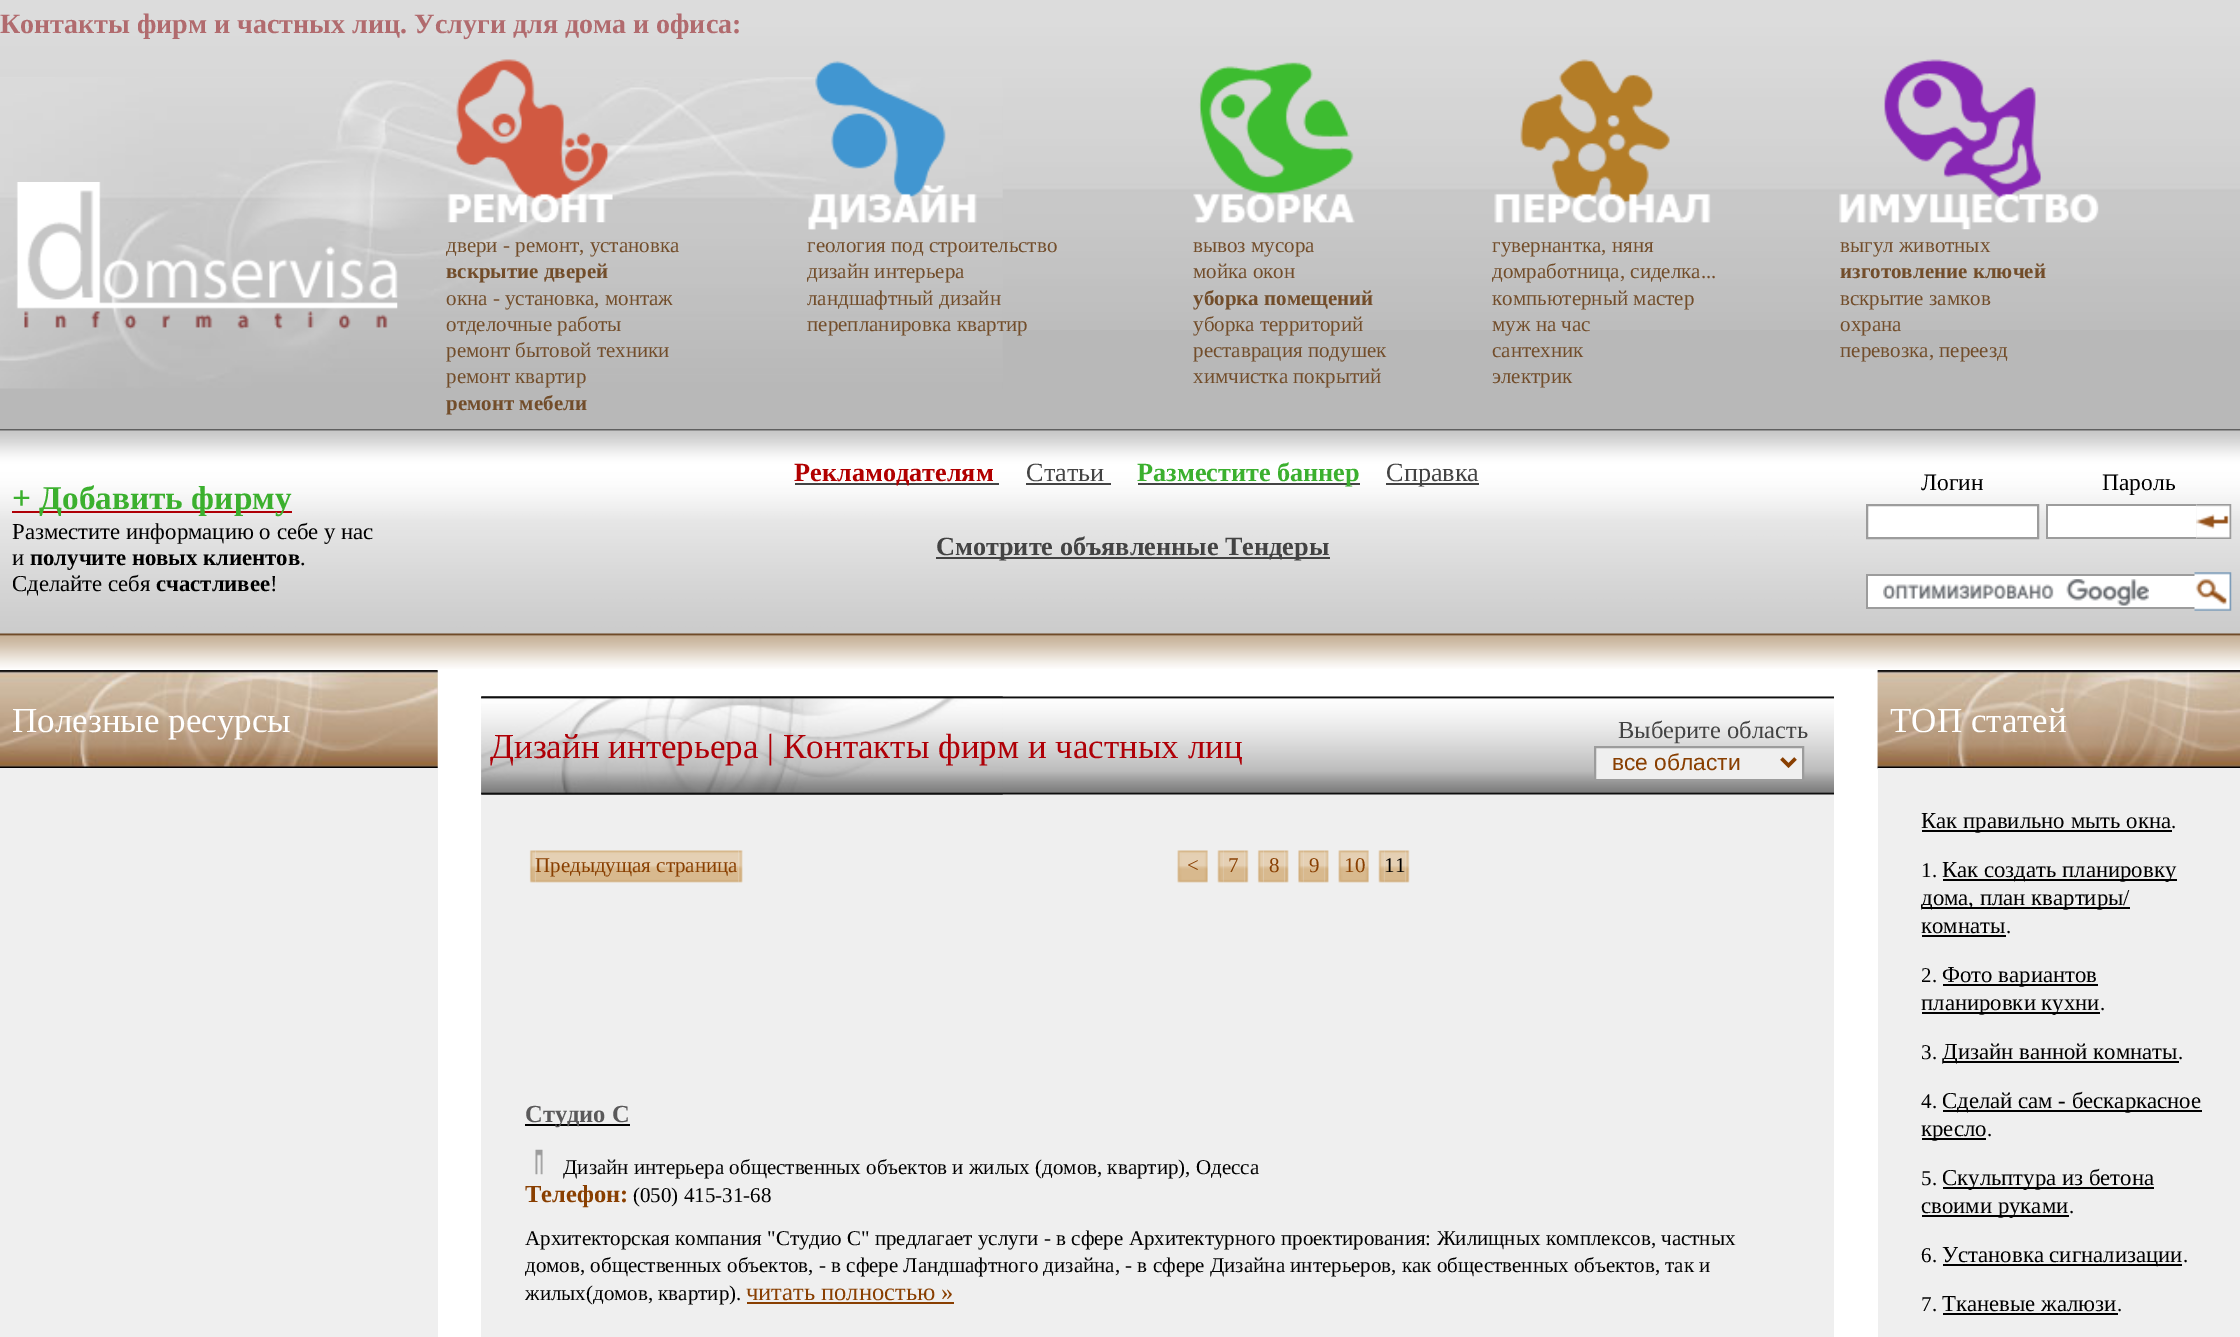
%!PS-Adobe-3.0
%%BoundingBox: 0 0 2240 1337
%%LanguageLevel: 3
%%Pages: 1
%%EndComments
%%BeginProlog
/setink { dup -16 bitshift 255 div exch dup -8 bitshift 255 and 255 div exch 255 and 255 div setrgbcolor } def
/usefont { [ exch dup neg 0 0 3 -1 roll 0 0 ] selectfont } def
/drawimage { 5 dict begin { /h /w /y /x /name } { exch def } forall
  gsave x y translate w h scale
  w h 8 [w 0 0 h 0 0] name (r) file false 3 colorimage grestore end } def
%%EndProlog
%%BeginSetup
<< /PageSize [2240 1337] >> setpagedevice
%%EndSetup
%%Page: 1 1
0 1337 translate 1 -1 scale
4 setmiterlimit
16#FFFFFF setink
0 0 2240 1337 rectfill
16#B8B8B8 setink
0 330 2240 99 rectfill
(img1.raw) 0 0 2240 330 drawimage
(img2.raw) 0 77 1003 312 drawimage
/LiberationSerif-Bold 28 usefont
16#B16B6E setink
0 33 moveto (Контакты фирм и частных лиц. Услуги для дома и офиса:) show
(img3.raw) 16 182 382 147 drawimage
(img4.raw) 447 59 166 164 drawimage
(img5.raw) 808 60 169 170 drawimage
(img6.raw) 1193 62 162 161 drawimage
(img7.raw) 1494 59 217 164 drawimage
(img8.raw) 1839 59 260 171 drawimage
/LiberationSerif-Regular 21 usefont
16#724D2A setink
446 252 moveto (двери - ремонт, установка) show
/LiberationSerif-Bold 21 usefont
446 278 moveto (вскрытие дверей) show
/LiberationSerif-Regular 21 usefont
[
    [(окна - установка, монтаж) 446 305]
    [(отделочные работы) 446 331]
    [(ремонт бытовой техники) 446 357]
    [(ремонт квартир) 446 383]
] { aload pop moveto show } forall
/LiberationSerif-Bold 21 usefont
446 410 moveto (ремонт мебели) show
/LiberationSerif-Regular 21 usefont
[
    [(геология под строительство) 807 252]
    [(дизайн интерьера) 807 278]
    [(ландшафтный дизайн) 807 305]
    [(перепланировка квартир) 807 331]
    [(вывоз мусора) 1193 252]
    [(мойка окон) 1193 278]
] { aload pop moveto show } forall
/LiberationSerif-Bold 21 usefont
1193 305 moveto (уборка помещений) show
/LiberationSerif-Regular 21 usefont
[
    [(уборка территорий) 1193 331]
    [(реставрация подушек) 1193 357]
    [(химчистка покрытий) 1193 383]
    [(гувернантка, няня) 1492 252]
    [(домработница, сиделка...) 1492 278]
    [(компьютерный мастер) 1492 305]
    [(муж на час) 1492 331]
    [(сантехник) 1492 357]
    [(электрик) 1492 383]
    [(выгул животных) 1840 252]
] { aload pop moveto show } forall
/LiberationSerif-Bold 21 usefont
1840 278 moveto (изготовление ключей) show
/LiberationSerif-Regular 21 usefont
[
    [(вскрытие замков) 1840 305]
    [(охрана) 1840 331]
    [(перевозка, переезд) 1840 357]
] { aload pop moveto show } forall
(img9.raw) 0 429 2240 240 drawimage
16#AF0007 setink
12 511 280 2 rectfill
/LiberationSerif-Bold 33.25 usefont
16#3BB02E setink
12 509 moveto (+ Добавить фирму) show
/LiberationSerif-Regular 22.75 usefont
16#000000 setink
12 539 moveto (Разместите информацию о себе у нас) show
12 565 moveto (и) show
/LiberationSerif-Bold 22.75 usefont
30 565 moveto (получите новых клиентов) show
/LiberationSerif-Regular 22.75 usefont
300 565 moveto (.) show
12 591 moveto (Сделайте себя) show
/LiberationSerif-Bold 22.75 usefont
156 591 moveto (счастливее) show
/LiberationSerif-Regular 22.75 usefont
270 591 moveto (!) show
16#434343 setink
795 483 204 2 rectfill
/LiberationSerif-Bold 26.25 usefont
16#B10000 setink
794 481 moveto (Рекламодателям) show
/LiberationSerif-Regular 26.25 usefont
16#434343 setink
1026 481 moveto (Статьи) show
1026 483 85 2 rectfill
1138 483 222 2 rectfill
/LiberationSerif-Bold 26.25 usefont
16#3BB02E setink
1137 481 moveto (Разместите баннер) show
16#434343 setink
1386 483 93 2 rectfill
/LiberationSerif-Regular 26.25 usefont
1386 481 moveto (Справка) show
936 557 394 2 rectfill
/LiberationSerif-Bold 26.25 usefont
936 555 moveto (Смотрите объявленные Тендеры) show
/LiberationSerif-Regular 23.5 usefont
16#000000 setink
1921 490 moveto (Логин) show
2102 490 moveto (Пароль) show
16#FFFFFF setink
1867 505 moveto 2038 505 lineto 2038 538 lineto 1867 538 lineto closepath gsave fill grestore
16#9C9C9C setink
2 setlinewidth
stroke
[
    [2048 506 148 31 16#FFFFFF]
    [2046 504 150 2 16#9C9C9C]
    [2046 537 150 2 16#9C9C9C]
    [2046 504 2 35 16#9C9C9C]
] { aload pop setink rectfill } forall
(img10.raw) 2196 504 36 35 drawimage
16#FFFFFF setink
1868 576 327 31 rectfill
(img11.raw) 1883 579 266 27 drawimage
[
    [1866 574 329 2 16#9C9C9C]
    [1866 607 329 2 16#9C9C9C]
    [1866 574 2 35 16#9C9C9C]
] { aload pop setink rectfill } forall
(img12.raw) 2194 572 38 39 drawimage
(img13.raw) 0 670 438 98 drawimage
(img14.raw) 0 670 438 98 drawimage
/LiberationSerif-Regular 35 usefont
16#FFFFFF setink
12 732 moveto (Полезные ресурсы) show
16#EFEFEF setink
0 768 438 569 rectfill
(img15.raw) 481 696 1353 99 drawimage
(img16.raw) 481 696 522 99 drawimage
16#AF0007 setink
490 758 moveto (Дизайн интерьера | Контакты фирм и частных лиц) show
/LiberationSerif-Regular 24.5 usefont
16#434343 setink
1618 738 moveto (Выберите область) show
16#EFEFEF setink
1595 747 moveto 1803 747 lineto 1803 780 lineto 1595 780 lineto closepath gsave fill grestore
16#9C9C9C setink
stroke
16#893F01 setink
3.5 setlinewidth
1781.5 758.5 moveto 1788.5 765.5 lineto 1795.5 758.5 lineto stroke
/LiberationSans-Regular 22.75 usefont
1612 770 moveto (все области) show
16#EFEFEF setink
481 795 1353 542 rectfill
(img17.raw) 529 850 7 33 drawimage
(img18.raw) 535 850 204 33 drawimage
/LiberationSerif-Regular 21 usefont
16#893F01 setink
535 872 moveto (Предыдущая страница) show
(img19.raw) 738 850 5 33 drawimage
(img20.raw) 1177 850 6 33 drawimage
(img21.raw) 1183 850 21 33 drawimage
1187 872 moveto (<) show
(img22.raw) 1204 850 4 33 drawimage
(img23.raw) 1217 850 7 33 drawimage
(img24.raw) 1223 850 22 33 drawimage
1228 872 moveto (7) show
(img25.raw) 1244 850 5 33 drawimage
(img17.raw) 1257 850 7 33 drawimage
(img26.raw) 1263 850 22 33 drawimage
1269 872 moveto (8) show
(img19.raw) 1284 850 5 33 drawimage
(img27.raw) 1298 850 6 33 drawimage
(img28.raw) 1303 850 22 33 drawimage
1309 872 moveto (9) show
(img29.raw) 1324 850 5 33 drawimage
(img30.raw) 1338 850 6 33 drawimage
(img21.raw) 1344 850 21 33 drawimage
1344 872 moveto (10) show
(img22.raw) 1365 850 4 33 drawimage
(img31.raw) 1378 850 7 33 drawimage
(img24.raw) 1384 850 22 33 drawimage
16#000000 setink
1384 872 moveto (11) show
(img25.raw) 1405 850 5 33 drawimage
525 1124 105 2 rectfill
/LiberationSerif-Bold 24.5 usefont
16#5A595A setink
525 1122 moveto (Студио С) show
(img32.raw) 535 1149 8 26 drawimage
/LiberationSerif-Regular 21 usefont
16#000000 setink
563 1174 moveto (Дизайн интерьера общественных объектов и жилых \(домов, квартир\), Одесса) show
/LiberationSerif-Bold 24.5 usefont
16#893F01 setink
525 1202 moveto (Телефон:) show
/LiberationSerif-Regular 21 usefont
16#000000 setink
[
    [(\(050\) 415-31-68) 633 1202]
    [(Архитекторская компания "Студио С" предлагает услуги - в сфере Архитектурного проектирования: Жилищных комплексов, частных) 525 1245]
    [(домов, общественных объектов, - в сфере Ландшафтного дизайна, - в сфере Дизайна интерьеров, как общественных объектов, так и) 525 1272]
    [(жилых\(домов, квартир\).) 525 1300]
] { aload pop moveto show } forall
/LiberationSerif-Regular 24.5 usefont
16#893F01 setink
746 1300 moveto (читать полностью ») show
747 1302 207 2 rectfill
(img33.raw) 1877 670 363 99 drawimage
(img34.raw) 1877 670 363 99 drawimage
/LiberationSerif-Regular 35 usefont
16#FFFFFF setink
1890 732 moveto (ТОП статей) show
16#EFEFEF setink
1878 768 362 569 rectfill
16#000000 setink
1922 830 250 2 rectfill
/LiberationSerif-Regular 22.75 usefont
1921 828 moveto (Как правильно мыть окна) show
/LiberationSerif-Regular 21 usefont
2171 828 moveto (.) show
1921 877 moveto (1.) show
1943 879 234 2 rectfill
/LiberationSerif-Regular 22.75 usefont
1942 877 moveto (Как создать планировку) show
1922 907 208 2 rectfill
1921 905 moveto (дома, план квартиры/) show
1921 933 moveto (комнаты) show
1922 935 84 2 rectfill
/LiberationSerif-Regular 21 usefont
2006 933 moveto (.) show
1921 982 moveto (2.) show
1943 984 155 2 rectfill
/LiberationSerif-Regular 22.75 usefont
1942 982 moveto (Фото вариантов) show
1922 1012 178 2 rectfill
1921 1010 moveto (планировки кухни) show
/LiberationSerif-Regular 21 usefont
2100 1010 moveto (.) show
1921 1059 moveto (3.) show
1943 1061 236 2 rectfill
/LiberationSerif-Regular 22.75 usefont
1942 1059 moveto (Дизайн ванной комнаты) show
/LiberationSerif-Regular 21 usefont
2178 1059 moveto (.) show
1921 1108 moveto (4.) show
1943 1110 259 2 rectfill
/LiberationSerif-Regular 22.75 usefont
1942 1108 moveto (Сделай сам - бескаркасное) show
1922 1138 64 2 rectfill
1921 1136 moveto (кресло) show
/LiberationSerif-Regular 21 usefont
1987 1136 moveto (.) show
1921 1185 moveto (5.) show
1943 1187 211 2 rectfill
/LiberationSerif-Regular 22.75 usefont
1942 1185 moveto (Скульптура из бетона) show
1922 1215 147 2 rectfill
1921 1213 moveto (своими руками) show
/LiberationSerif-Regular 21 usefont
2069 1213 moveto (.) show
1921 1262 moveto (6.) show
1943 1264 239 2 rectfill
/LiberationSerif-Regular 22.75 usefont
1942 1262 moveto (Установка сигнализации) show
/LiberationSerif-Regular 21 usefont
2183 1262 moveto (.) show
1921 1311 moveto (7.) show
/LiberationSerif-Regular 22.75 usefont
1942 1311 moveto (Тканевые жалюзи) show
1943 1313 175 2 rectfill
/LiberationSerif-Regular 21 usefont
2117 1311 moveto (.) show
showpage
%%EOF
